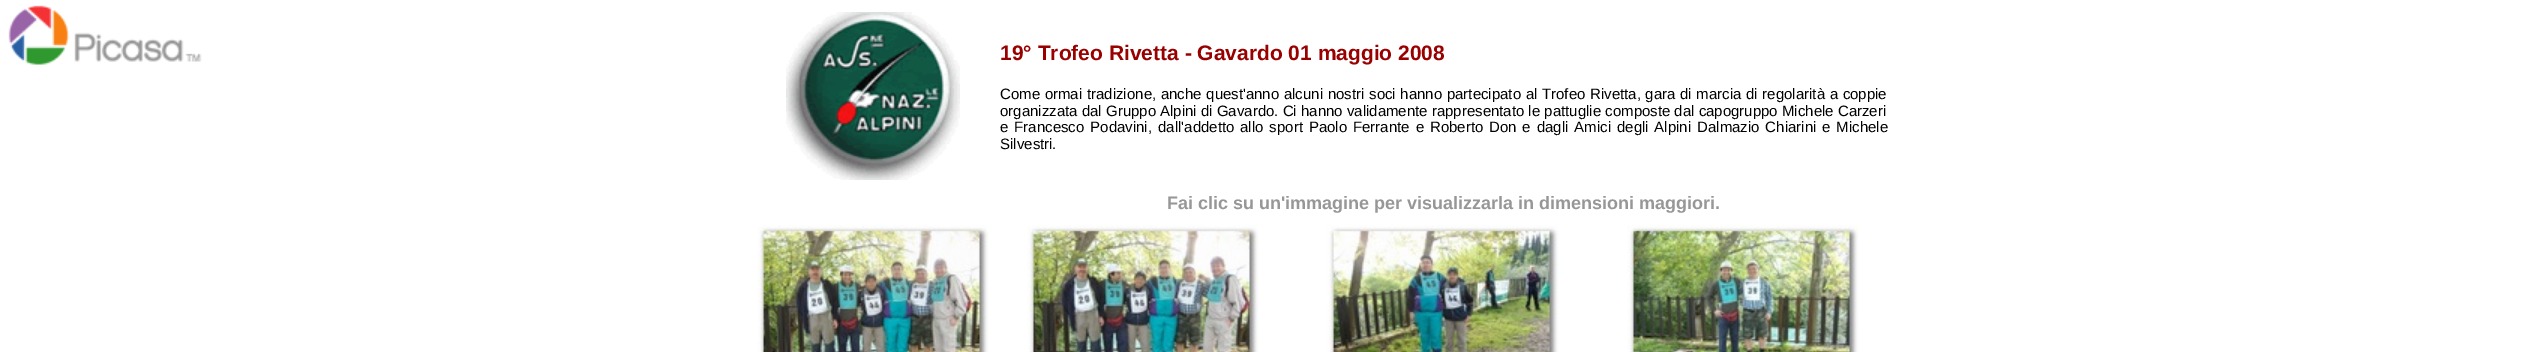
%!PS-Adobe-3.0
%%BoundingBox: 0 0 2536 352
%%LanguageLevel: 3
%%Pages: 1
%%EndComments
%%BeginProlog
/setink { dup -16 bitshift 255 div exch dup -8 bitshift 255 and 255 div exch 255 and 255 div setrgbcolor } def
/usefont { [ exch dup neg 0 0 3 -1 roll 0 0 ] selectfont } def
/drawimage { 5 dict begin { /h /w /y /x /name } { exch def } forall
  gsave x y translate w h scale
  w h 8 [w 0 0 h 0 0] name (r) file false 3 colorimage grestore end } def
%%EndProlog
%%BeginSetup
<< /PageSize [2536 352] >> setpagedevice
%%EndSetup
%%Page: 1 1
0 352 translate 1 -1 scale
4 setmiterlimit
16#FFFFFF setink
0 0 2536 352 rectfill
(img1.raw) 8 5 194 60 drawimage
(img2.raw) 786 12 174 168 drawimage
/LiberationSans-Bold 21 usefont
16#990000 setink
1000 60 moveto (19° Trofeo Rivetta - Gavardo 01 maggio 2008) show
/LiberationSans-Regular 15 usefont
16#000000 setink
1000 99 moveto 0.5 0 32 (Come ormai tradizione, anche quest'anno alcuni nostri) widthshow
1369 99 moveto 0.5 0 32 (soci hanno partecipato al Trofeo Rivetta, gara di marcia di regolarità a coppie) widthshow
1000 116 moveto (organizzata dal Gruppo Alpini di Gavardo. Ci hanno validamente rappresentato le pattuglie composte dal capogruppo Michele Carzeri) show
1000 132 moveto 1.75 0 32 (e Francesco Podavini,) widthshow
1158 132 moveto 1.75 0 32 (dall'addetto allo sport Paolo Ferrante e Roberto Don e dagli Amici degli Alpini) widthshow
1697 132 moveto 1.75 0 32 (Dalmazio Chiarini e Michele) widthshow
1000 149 moveto (Silvestri.) show
/LiberationSans-Bold 18 usefont
16#979797 setink
1167 209 moveto (Fai clic su un'immagine per visualizzarla in dimensioni maggiori.) show
(img3.raw) 757 225 232 127 drawimage
(img4.raw) 1027 225 232 127 drawimage
(img5.raw) 1327 225 232 127 drawimage
(img6.raw) 1627 225 232 127 drawimage
showpage
%%EOF
